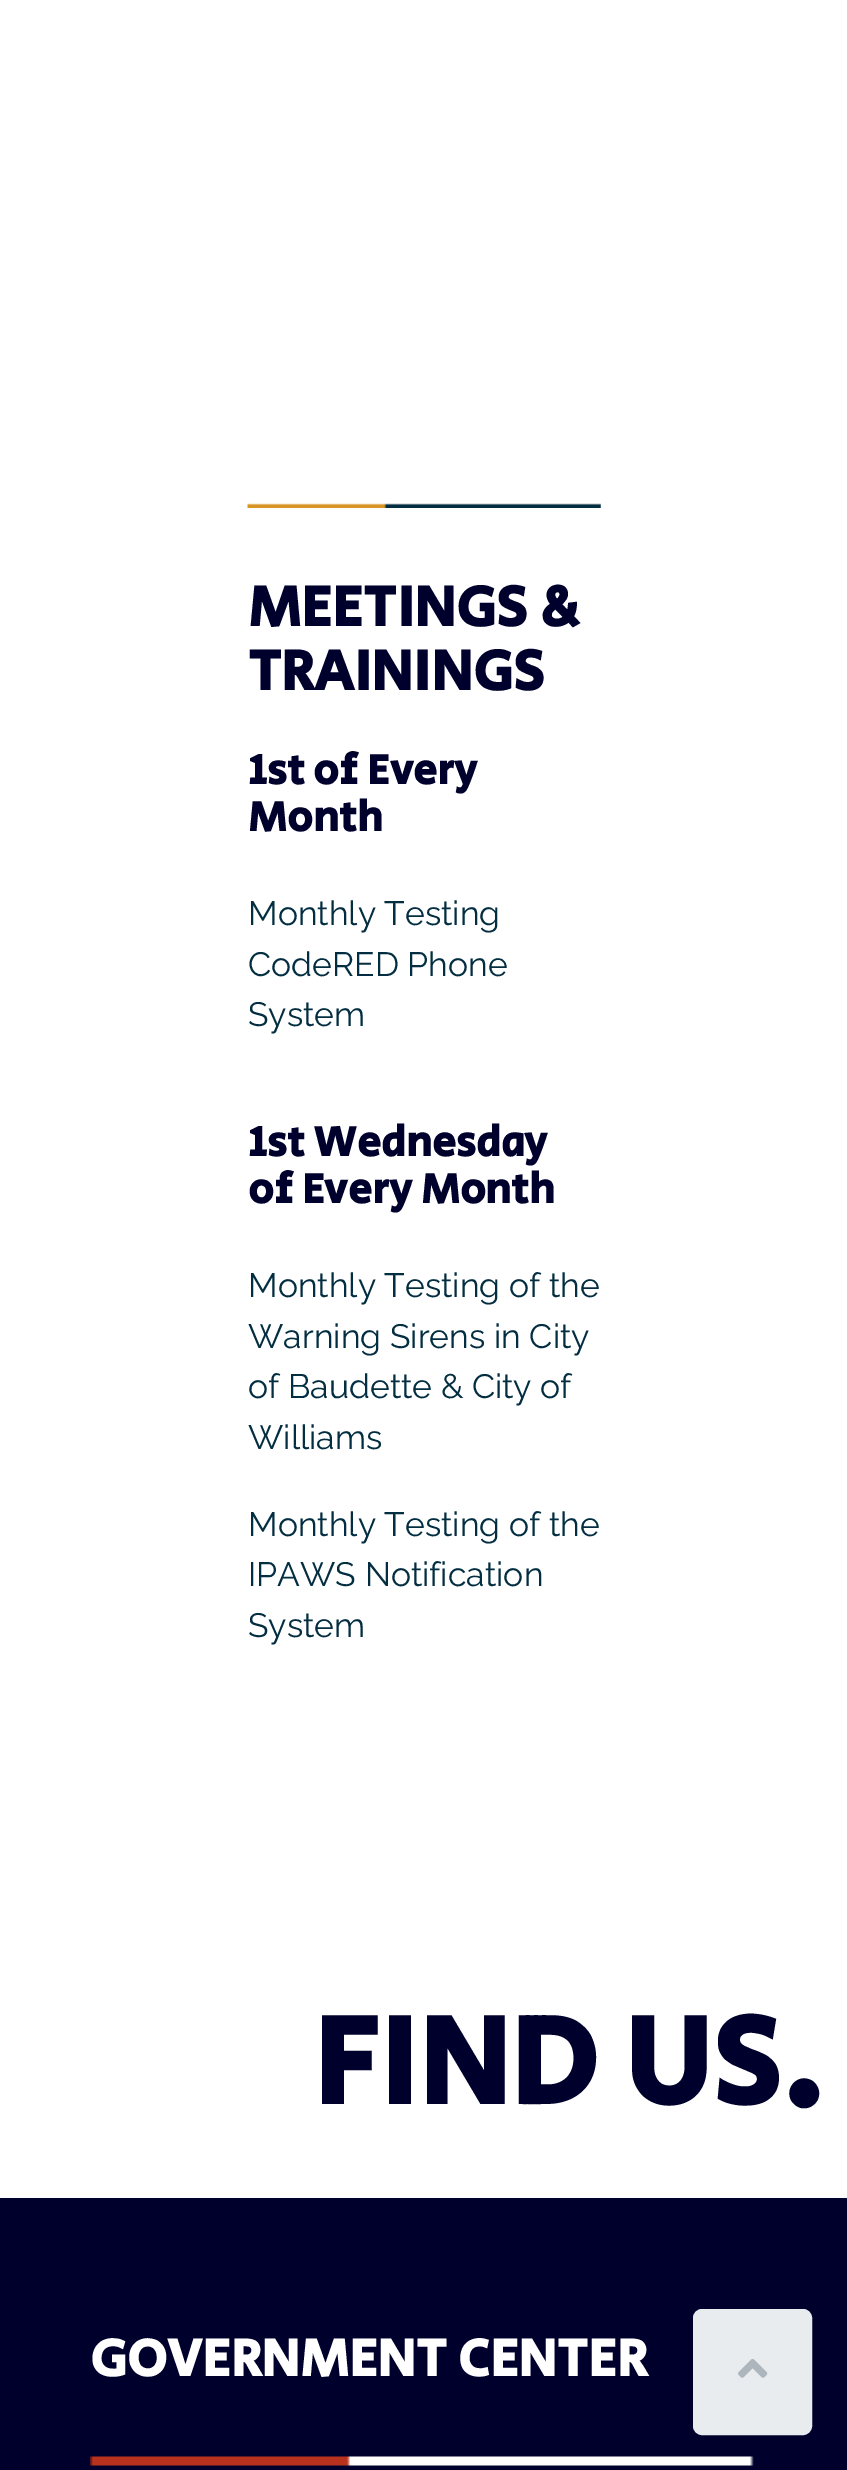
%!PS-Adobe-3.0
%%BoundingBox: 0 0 847 2470
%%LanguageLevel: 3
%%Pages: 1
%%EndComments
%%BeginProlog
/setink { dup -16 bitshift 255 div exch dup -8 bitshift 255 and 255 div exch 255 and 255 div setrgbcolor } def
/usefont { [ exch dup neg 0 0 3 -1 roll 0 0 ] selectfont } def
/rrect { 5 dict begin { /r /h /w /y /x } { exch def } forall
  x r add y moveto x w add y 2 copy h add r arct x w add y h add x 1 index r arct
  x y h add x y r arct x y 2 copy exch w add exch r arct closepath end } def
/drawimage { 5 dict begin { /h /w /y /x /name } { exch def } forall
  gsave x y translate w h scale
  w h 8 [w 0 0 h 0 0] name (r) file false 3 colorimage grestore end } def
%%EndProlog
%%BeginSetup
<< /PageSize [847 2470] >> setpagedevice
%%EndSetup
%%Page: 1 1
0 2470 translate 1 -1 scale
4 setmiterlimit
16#FFFFFF setink
0 0 847 2470 rectfill
(img1.raw) 247 503 354 5 drawimage
/SecularOne-Bold 58.5 usefont
16#00002D setink
248 626 moveto (MEETINGS &) show
248 690 moveto (TRAININGS) show
/SecularOne-Bold 42.75 usefont
248 784 moveto (1st of Every) show
248 831 moveto (Month) show
/Raleway-Regular 33.75 usefont
16#032D40 setink
[
    [(Monthly Testing) 248 925]
    [(CodeRED Phone) 248 976]
    [(System) 248 1026]
] { aload pop moveto show } forall
/SecularOne-Bold 42.75 usefont
16#00002D setink
248 1156 moveto (1st Wednesday) show
248 1203 moveto (of Every Month) show
/Raleway-Regular 33.75 usefont
16#032D40 setink
[
    [(Monthly Testing of the) 248 1297]
    [(Warning Sirens in City) 248 1348]
    [(of Baudette & City of) 248 1398]
    [(Williams) 248 1449]
    [(Monthly Testing of the) 248 1536]
    [(IPAWS Notification) 248 1586]
    [(System) 248 1637]
] { aload pop moveto show } forall
/SecularOne-Bold 128 usefont
16#00002D setink
313 2104 moveto (FIND US.) show
0 2198 847 272 rectfill
/SecularOne-Bold 54 usefont
16#FFFFFF setink
90 2376 moveto (GOVERNMENT CENTER) show
(img2.raw) 90 2456 664 10 drawimage
16#E9ECEF setink
694 2310 117 124 8 rrect gsave fill grestore
2 setlinewidth
stroke
(img3.raw) 738 2359 30 19 drawimage
showpage
%%EOF
